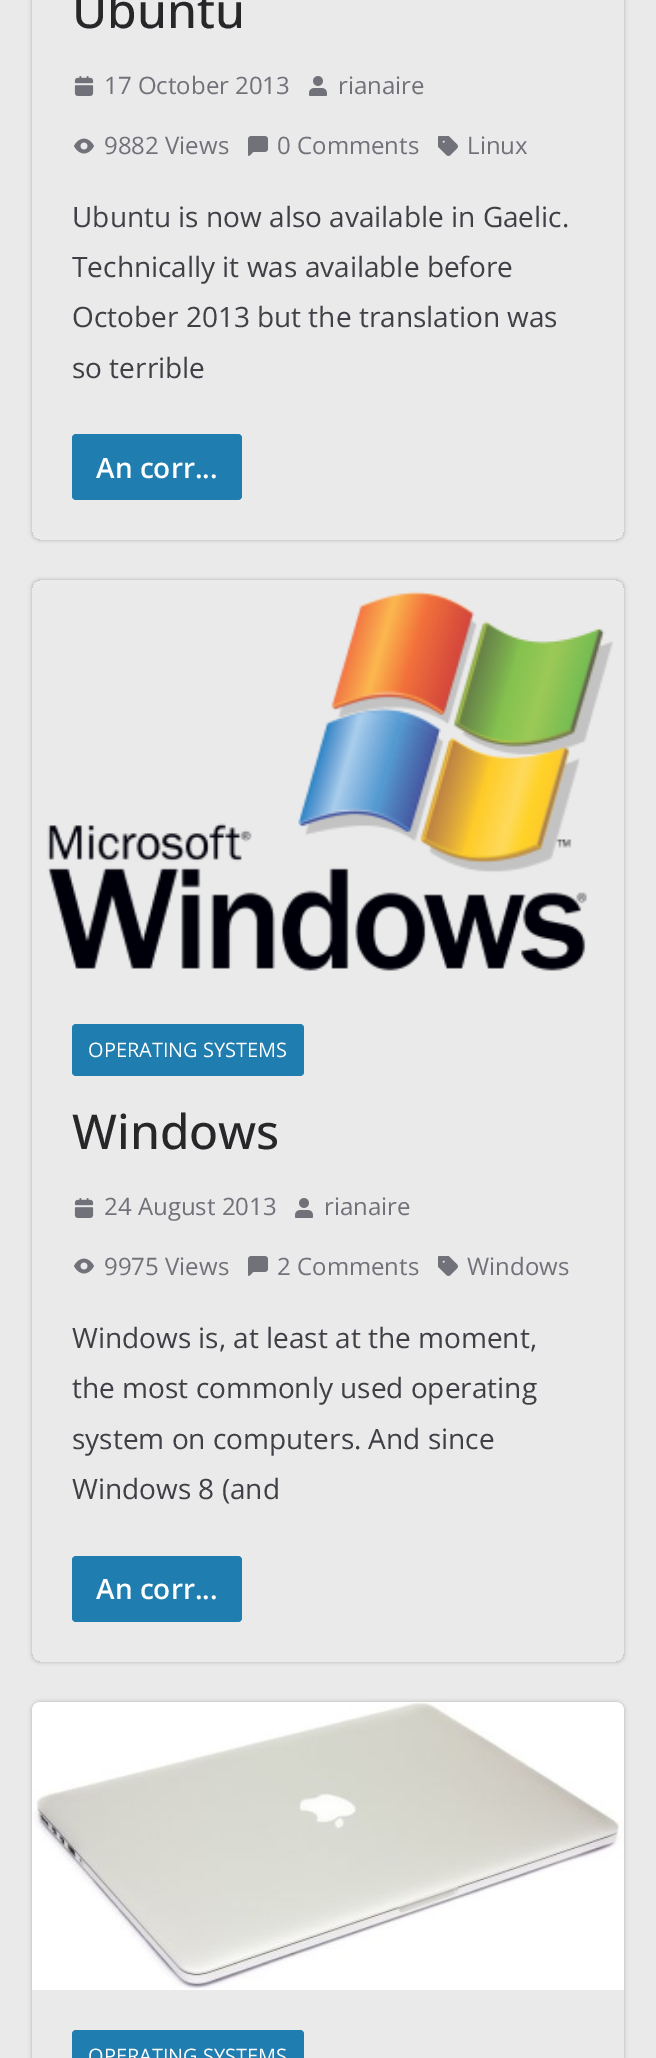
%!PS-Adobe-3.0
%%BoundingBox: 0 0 656 2058
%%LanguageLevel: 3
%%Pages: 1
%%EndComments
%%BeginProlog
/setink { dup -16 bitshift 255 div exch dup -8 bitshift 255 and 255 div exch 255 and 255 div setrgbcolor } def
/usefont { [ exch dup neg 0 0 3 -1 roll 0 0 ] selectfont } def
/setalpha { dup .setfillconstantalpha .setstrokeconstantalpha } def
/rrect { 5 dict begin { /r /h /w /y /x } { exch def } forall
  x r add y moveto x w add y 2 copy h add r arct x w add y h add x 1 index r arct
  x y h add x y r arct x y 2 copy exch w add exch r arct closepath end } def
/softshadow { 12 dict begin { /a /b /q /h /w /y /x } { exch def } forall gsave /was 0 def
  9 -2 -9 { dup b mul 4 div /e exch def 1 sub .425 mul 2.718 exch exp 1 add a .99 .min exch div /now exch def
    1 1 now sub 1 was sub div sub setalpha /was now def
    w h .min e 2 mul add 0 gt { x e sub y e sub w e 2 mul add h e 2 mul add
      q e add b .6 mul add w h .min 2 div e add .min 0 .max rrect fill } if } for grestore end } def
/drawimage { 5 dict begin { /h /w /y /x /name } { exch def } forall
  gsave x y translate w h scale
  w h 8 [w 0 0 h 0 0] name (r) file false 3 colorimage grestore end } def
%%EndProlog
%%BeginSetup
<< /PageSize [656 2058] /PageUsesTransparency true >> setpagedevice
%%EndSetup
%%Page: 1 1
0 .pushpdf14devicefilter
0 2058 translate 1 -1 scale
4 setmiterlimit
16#EAEAEA setink
0 0 656 2058 rectfill
gsave
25 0 moveto 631 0 lineto 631 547 lineto 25 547 lineto closepath 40 -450 moveto 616 -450 lineto 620.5 -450 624 -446.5 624 -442 curveto 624 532 lineto 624 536.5 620.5 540 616 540 curveto 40 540 lineto 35.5 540 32 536.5 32 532 curveto 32 -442 lineto 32 -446.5 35.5 -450 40 -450 curveto closepath eoclip newpath
16#000000 setink
32 -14 592 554 8 2 0.24 softshadow
grestore
/OpenSans-Medium 48 usefont
16#27272A setink
72 28 moveto (Ubuntu) show
(img1.raw) 74 76 20 20 drawimage
/OpenSans-Regular 24 usefont
16#71717A setink
104 94 moveto (17 October 2013) show
(img2.raw) 309 76 18 20 drawimage
338 94 moveto (rianaire) show
(img3.raw) 74 138 20 16 drawimage
104 154 moveto (9882 Views) show
(img4.raw) 248 136 20 20 drawimage
277 154 moveto (0 Comments) show
(img5.raw) 438 136 20 20 drawimage
467 154 moveto (Linux) show
/OpenSans-Regular 28 usefont
16#3F3F46 setink
[
    [(Ubuntu is now also available in Gaelic.) 72 227]
    [(Technically it was available before) 72 277]
    [(October 2013 but the translation was) 72 327]
    [(so terrible) 72 378]
] { aload pop moveto show } forall
16#207DAF setink
72 434 170 66 4 rrect fill
/OpenSans-SemiBold 28 usefont
16#FFFFFF setink
96 478 moveto (An corr...) show
gsave
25 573 moveto 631 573 lineto 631 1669 lineto 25 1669 lineto closepath 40 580 moveto 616 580 lineto 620.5 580 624 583.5 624 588 curveto 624 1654 lineto 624 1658.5 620.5 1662 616 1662 curveto 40 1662 lineto 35.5 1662 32 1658.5 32 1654 curveto 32 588 lineto 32 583.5 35.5 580 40 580 curveto closepath eoclip newpath
16#000000 setink
32 580 592 1082 8 2 0.24 softshadow
grestore
(img6.raw) 47 591 566 380 drawimage
16#207DAF setink
72 1024 232 52 4 rrect fill
/OpenSans-Regular 20 usefont
16#FFFFFF setink
88 1057 moveto (OPERATING SYSTEMS) show
/OpenSans-Medium 48 usefont
16#27272A setink
72 1149 moveto (Windows) show
(img1.raw) 74 1198 20 20 drawimage
/OpenSans-Regular 24 usefont
16#71717A setink
104 1215 moveto (24 August 2013) show
(img2.raw) 295 1198 18 20 drawimage
324 1215 moveto (rianaire) show
(img3.raw) 74 1258 20 16 drawimage
104 1275 moveto (9975 Views) show
(img4.raw) 248 1256 20 20 drawimage
277 1275 moveto (2 Comments) show
(img5.raw) 438 1256 20 20 drawimage
467 1275 moveto (Windows) show
/OpenSans-Regular 28 usefont
16#3F3F46 setink
[
    [(Windows is, at least at the moment,) 72 1348]
    [(the most commonly used operating) 72 1398]
    [(system on computers. And since) 72 1449]
    [(Windows 8 \(and) 72 1499]
] { aload pop moveto show } forall
16#207DAF setink
72 1556 170 66 4 rrect fill
/OpenSans-SemiBold 28 usefont
16#FFFFFF setink
96 1599 moveto (An corr...) show
gsave
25 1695 moveto 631 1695 lineto 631 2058 lineto 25 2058 lineto closepath 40 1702 moveto 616 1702 lineto 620.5 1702 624 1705.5 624 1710 curveto 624 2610 lineto 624 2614.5 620.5 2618 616 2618 curveto 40 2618 lineto 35.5 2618 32 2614.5 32 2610 curveto 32 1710 lineto 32 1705.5 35.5 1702 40 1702 curveto closepath eoclip newpath
16#000000 setink
32 1702 592 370 8 2 0.24 softshadow
grestore
(img7.raw) 32 1702 592 288 drawimage
16#207DAF setink
72 2030 232 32 4 rrect fill
/OpenSans-Regular 20 usefont
16#FFFFFF setink
88 2063 moveto (OPERATING SYSTEMS) show
.poppdf14devicefilter showpage
%%EOF
